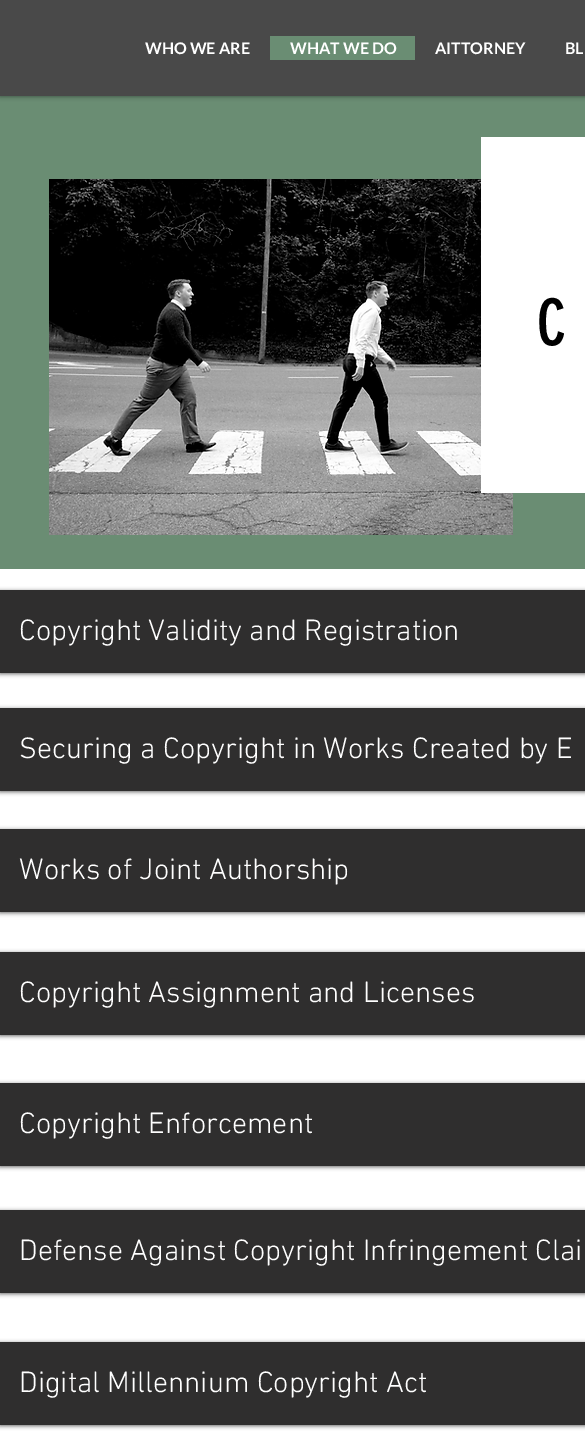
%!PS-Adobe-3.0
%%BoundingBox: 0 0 585 1431
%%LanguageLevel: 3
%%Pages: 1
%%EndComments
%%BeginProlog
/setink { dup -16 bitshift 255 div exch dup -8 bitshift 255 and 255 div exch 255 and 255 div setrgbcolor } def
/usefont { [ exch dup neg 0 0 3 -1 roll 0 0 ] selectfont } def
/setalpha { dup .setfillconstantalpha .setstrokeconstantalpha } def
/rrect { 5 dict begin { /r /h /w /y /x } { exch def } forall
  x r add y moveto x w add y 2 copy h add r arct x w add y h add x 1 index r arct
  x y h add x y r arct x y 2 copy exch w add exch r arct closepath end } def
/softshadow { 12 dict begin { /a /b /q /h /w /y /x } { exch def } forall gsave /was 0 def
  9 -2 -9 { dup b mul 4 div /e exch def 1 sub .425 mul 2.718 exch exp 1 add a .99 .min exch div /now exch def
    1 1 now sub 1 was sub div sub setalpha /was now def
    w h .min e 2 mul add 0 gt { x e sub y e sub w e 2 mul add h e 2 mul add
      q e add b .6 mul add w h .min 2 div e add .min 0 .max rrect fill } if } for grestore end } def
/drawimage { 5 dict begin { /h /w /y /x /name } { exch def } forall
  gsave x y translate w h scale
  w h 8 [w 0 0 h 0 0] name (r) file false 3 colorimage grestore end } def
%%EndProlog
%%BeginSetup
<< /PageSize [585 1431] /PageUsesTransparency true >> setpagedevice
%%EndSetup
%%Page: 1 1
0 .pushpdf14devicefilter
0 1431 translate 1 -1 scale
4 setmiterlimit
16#FFFFFF setink
0 0 585 1431 rectfill
16#6A8D73 setink
0 96 585 473 rectfill
16#000000 setink
0 0 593 96 0 2.5 0.5 softshadow
16#494949 setink
0 0 585 96 rectfill
/Lato-Bold 16 usefont
16#FFFFFF setink
145 54 moveto (WHO WE ARE) show
16#6A8D73 setink
270 36 145 24 rectfill
16#FFFFFF setink
[
    [(WHAT WE DO) 290 54]
    [(AITTORNEY) 435 54]
    [(BL) 565 54]
] { aload pop moveto show } forall
(img1.raw) 49 179 464 356 drawimage
481 137 104 356 rectfill
/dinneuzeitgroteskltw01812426-Regular 63 usefont
16#000000 setink
537 345 moveto 13 0 (C) ashow
0 591 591 83 0 2 0.6 softshadow
16#2F2E2E setink
0 590 585 83 rectfill
/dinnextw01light-Light 30 usefont
16#FFFFFF setink
19 640 moveto (Copyright Validity and Registration) show
16#000000 setink
0 709 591 83 0 2 0.6 softshadow
16#2F2E2E setink
0 708 585 83 rectfill
16#FFFFFF setink
19 758 moveto (Securing a Copyright in Works Created by E) show
16#000000 setink
0 830 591 83 0 2 0.6 softshadow
16#2F2E2E setink
0 829 585 83 rectfill
16#FFFFFF setink
19 879 moveto (Works of Joint Authorship) show
16#000000 setink
0 953 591 83 0 2 0.6 softshadow
16#2F2E2E setink
0 952 585 83 rectfill
16#FFFFFF setink
19 1002 moveto (Copyright Assignment and Licenses) show
16#000000 setink
0 1084 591 83 0 2 0.6 softshadow
16#2F2E2E setink
0 1083 585 83 rectfill
16#FFFFFF setink
19 1133 moveto (Copyright Enforcement) show
16#000000 setink
0 1211 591 83 0 2 0.6 softshadow
16#2F2E2E setink
0 1210 585 83 rectfill
16#FFFFFF setink
19 1260 moveto (Defense Against Copyright Infringement Clai) show
16#000000 setink
0 1343 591 83 0 2 0.6 softshadow
16#2F2E2E setink
0 1342 585 83 rectfill
16#FFFFFF setink
19 1392 moveto (Digital Millennium Copyright Act) show
.poppdf14devicefilter showpage
%%EOF
